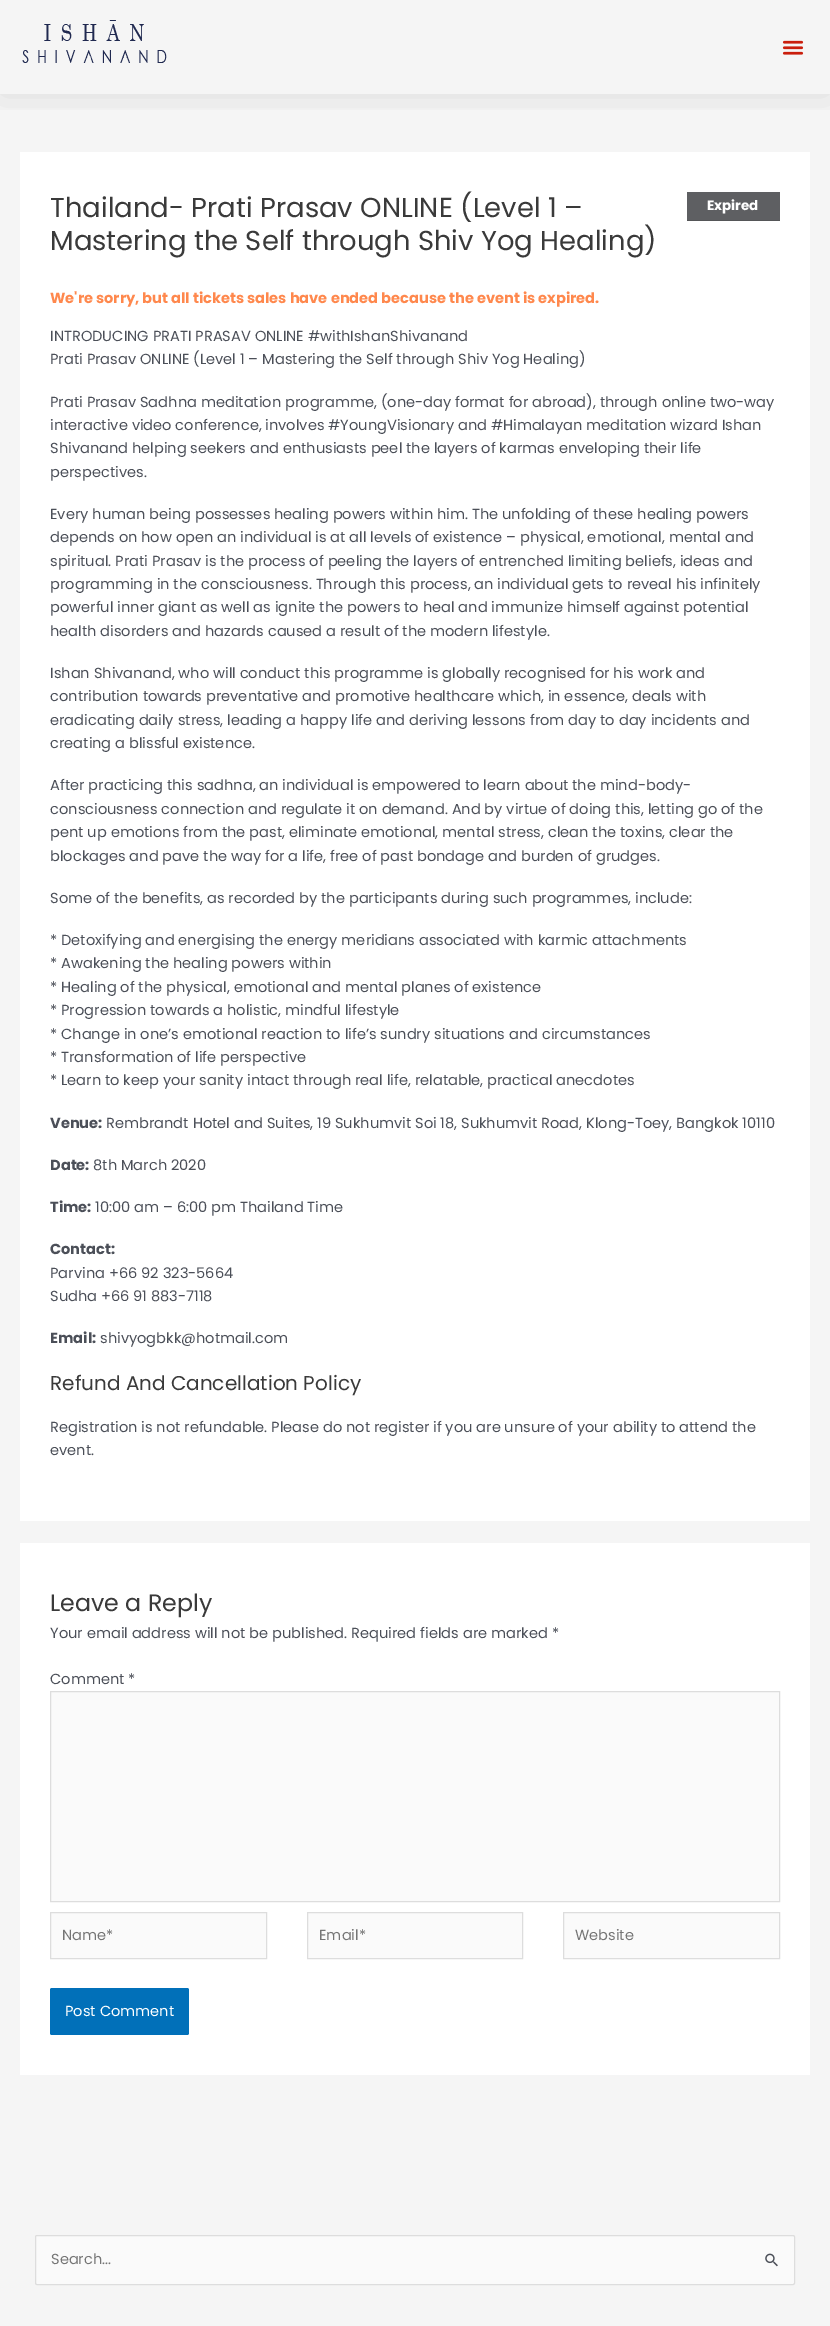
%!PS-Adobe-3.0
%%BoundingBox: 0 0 830 2326
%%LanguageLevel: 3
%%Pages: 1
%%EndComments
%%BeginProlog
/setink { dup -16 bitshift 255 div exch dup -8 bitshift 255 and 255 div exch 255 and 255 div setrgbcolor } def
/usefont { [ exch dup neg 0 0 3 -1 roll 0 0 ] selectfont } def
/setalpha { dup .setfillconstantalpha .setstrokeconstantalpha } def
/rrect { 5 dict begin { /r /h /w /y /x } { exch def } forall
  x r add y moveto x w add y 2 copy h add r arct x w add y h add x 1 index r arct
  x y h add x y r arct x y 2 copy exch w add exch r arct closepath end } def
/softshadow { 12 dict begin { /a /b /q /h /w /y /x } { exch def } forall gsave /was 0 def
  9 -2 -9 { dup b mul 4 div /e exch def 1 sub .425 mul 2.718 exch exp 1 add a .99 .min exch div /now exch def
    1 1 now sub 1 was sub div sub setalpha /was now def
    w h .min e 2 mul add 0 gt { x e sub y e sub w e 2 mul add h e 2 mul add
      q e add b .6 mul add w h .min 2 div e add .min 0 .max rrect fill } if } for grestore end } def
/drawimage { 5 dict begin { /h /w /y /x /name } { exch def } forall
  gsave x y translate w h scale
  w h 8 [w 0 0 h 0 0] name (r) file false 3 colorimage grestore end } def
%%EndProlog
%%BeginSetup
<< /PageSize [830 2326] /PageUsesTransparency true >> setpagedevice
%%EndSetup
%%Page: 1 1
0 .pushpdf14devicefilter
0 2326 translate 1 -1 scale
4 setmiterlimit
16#F5F5F5 setink
0 0 830 2326 rectfill
gsave
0 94 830 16 rectclip
16#000000 setink
0 0 830 94 0 19 0.1 softshadow
grestore
(img1.raw) 22 20 145 43 drawimage
(img2.raw) 782 40 22 15 drawimage
16#FFFFFF setink
20 152 790 1369 rectfill
/Poppins-Regular 27.4 usefont
16#3A3A3A setink
50 217 moveto (Thailand- Prati Prasav ONLINE \(Level 1 –) show
16#5E5F62 setink
687 192 93 28 rectfill
16#555658 setink
687 220 93 1 rectfill
/Poppins-Bold 13.5 usefont
16#FFFFFF setink
707 210 moveto (Expired) show
/Poppins-Regular 27.4 usefont
16#3A3A3A setink
50 250 moveto (Mastering the Self through Shiv Yog Healing\)) show
/Poppins-Bold 14.6 usefont
16#FF884D setink
50 303 moveto (We're sorry, but all tickets sales have ended because the event is expired.) show
/Poppins-Regular 14.6 usefont
16#4B4F58 setink
[
    [(INTRODUCING PRATI PRASAV ONLINE #withIshanShivanand) 50 341]
    [(Prati Prasav ONLINE \(Level 1 – Mastering the Self through Shiv Yog Healing\)) 50 364]
    [(Prati Prasav Sadhna meditation programme, \(one-day format for abroad\), through online two-way) 50 407]
    [(interactive video conference, involves #YoungVisionary and #Himalayan meditation wizard Ishan) 50 430]
    [(Shivanand helping seekers and enthusiasts peel the layers of karmas enveloping their life) 50 453]
    [(perspectives.) 50 477]
    [(Every human being possesses healing powers within him. The unfolding of these healing powers) 50 519]
    [(depends on how open an individual is at all levels of existence – physical, emotional, mental and) 50 542]
    [(spiritual. Prati Prasav is the process of peeling the layers of entrenched limiting beliefs, ideas and) 50 566]
    [(programming in the consciousness. Through this process, an individual gets to reveal his infinitely) 50 589]
    [(powerful inner giant as well as ignite the powers to heal and immunize himself against potential) 50 612]
    [(health disorders and hazards caused a result of the modern lifestyle.) 50 636]
    [(Ishan Shivanand, who will conduct this programme is globally recognised for his work and) 50 678]
    [(contribution towards preventative and promotive healthcare which, in essence, deals with) 50 701]
    [(eradicating daily stress, leading a happy life and deriving lessons from day to day incidents and) 50 725]
    [(creating a blissful existence.) 50 748]
    [(After practicing this sadhna, an individual is empowered to learn about the mind-body-) 50 790]
    [(consciousness connection and regulate it on demand. And by virtue of doing this, letting go of the) 50 814]
    [(pent up emotions from the past, eliminate emotional, mental stress, clean the toxins, clear the) 50 837]
    [(blockages and pave the way for a life, free of past bondage and burden of grudges.) 50 861]
    [(Some of the benefits, as recorded by the participants during such programmes, include:) 50 903]
    [(* Detoxifying and energising the energy meridians associated with karmic attachments) 50 945]
    [(* Awakening the healing powers within) 50 968]
    [(* Healing of the physical, emotional and mental planes of existence) 50 992]
    [(* Progression towards a holistic, mindful lifestyle) 50 1015]
    [(* Change in one’s emotional reaction to life’s sundry situations and circumstances) 50 1039]
    [(* Transformation of life perspective) 50 1062]
    [(* Learn to keep your sanity intact through real life, relatable, practical anecdotes) 50 1085]
] { aload pop moveto show } forall
/Poppins-Bold 14.6 usefont
50 1128 moveto (Venue:) show
/Poppins-Regular 14.6 usefont
106 1128 moveto (Rembrandt Hotel and Suites, 19 Sukhumvit Soi 18, Sukhumvit Road, Klong-Toey, Bangkok 10110) show
/Poppins-Bold 14.6 usefont
50 1170 moveto (Date:) show
/Poppins-Regular 14.6 usefont
93 1170 moveto (8th March 2020) show
/Poppins-Bold 14.6 usefont
50 1212 moveto (Time:) show
/Poppins-Regular 14.6 usefont
95 1212 moveto (10:00 am – 6:00 pm Thailand Time) show
/Poppins-Bold 14.6 usefont
50 1254 moveto (Contact:) show
/Poppins-Regular 14.6 usefont
50 1278 moveto (Parvina +66 92 323-5664) show
50 1301 moveto (Sudha +66 91 883-7118) show
/Poppins-Bold 14.6 usefont
50 1343 moveto (Email:) show
/Poppins-Regular 14.6 usefont
100 1343 moveto (shivyogbkk@hotmail.com) show
/Poppins-Regular 20 usefont
16#3A3A3A setink
50 1390 moveto (Refund And Cancellation Policy) show
/Poppins-Regular 14.6 usefont
16#4B4F58 setink
50 1432 moveto (Registration is not refundable. Please do not register if you are unsure of your ability to attend the) show
50 1455 moveto (event.) show
16#FFFFFF setink
20 1543 790 532 rectfill
/Poppins-Regular 23.75 usefont
16#3A3A3A setink
50 1611 moveto (Leave a Reply) show
/Poppins-Regular 14.6 usefont
16#4B4F58 setink
50 1638 moveto (Your email address will not be published. Required fields are marked *) show
50 1684 moveto (Comment *) show
16#FAFAFA setink
50.5 1691.5 moveto 779.5 1691.5 lineto 779.5 1901.5 lineto 50.5 1901.5 lineto closepath gsave fill grestore
16#DDDDDD setink
stroke
16#FAFAFA setink
50.5 1912.5 moveto 266.5 1912.5 lineto 266.5 1958.5 lineto 50.5 1958.5 lineto closepath gsave fill grestore
16#DDDDDD setink
stroke
16#757575 setink
62 1940 moveto (Name*) show
16#FAFAFA setink
307.5 1912.5 moveto 522.5 1912.5 lineto 522.5 1958.5 lineto 307.5 1958.5 lineto closepath gsave fill grestore
16#DDDDDD setink
stroke
16#757575 setink
319 1940 moveto (Email*) show
16#FAFAFA setink
563.5 1912.5 moveto 779.5 1912.5 lineto 779.5 1958.5 lineto 563.5 1958.5 lineto closepath gsave fill grestore
16#DDDDDD setink
stroke
16#757575 setink
575 1940 moveto (Website) show
16#0170B9 setink
50 1988 139 47 2 rrect fill
16#FFFFFF setink
65 2016 moveto (Post Comment) show
16#FAFAFA setink
35.5 2235.5 759 49 1.5 rrect gsave fill grestore
16#DDDDDD setink
stroke
16#757575 setink
51 2264 moveto (Search...) show
(img3.raw) 765 2253 13 14 drawimage
.poppdf14devicefilter showpage
%%EOF
